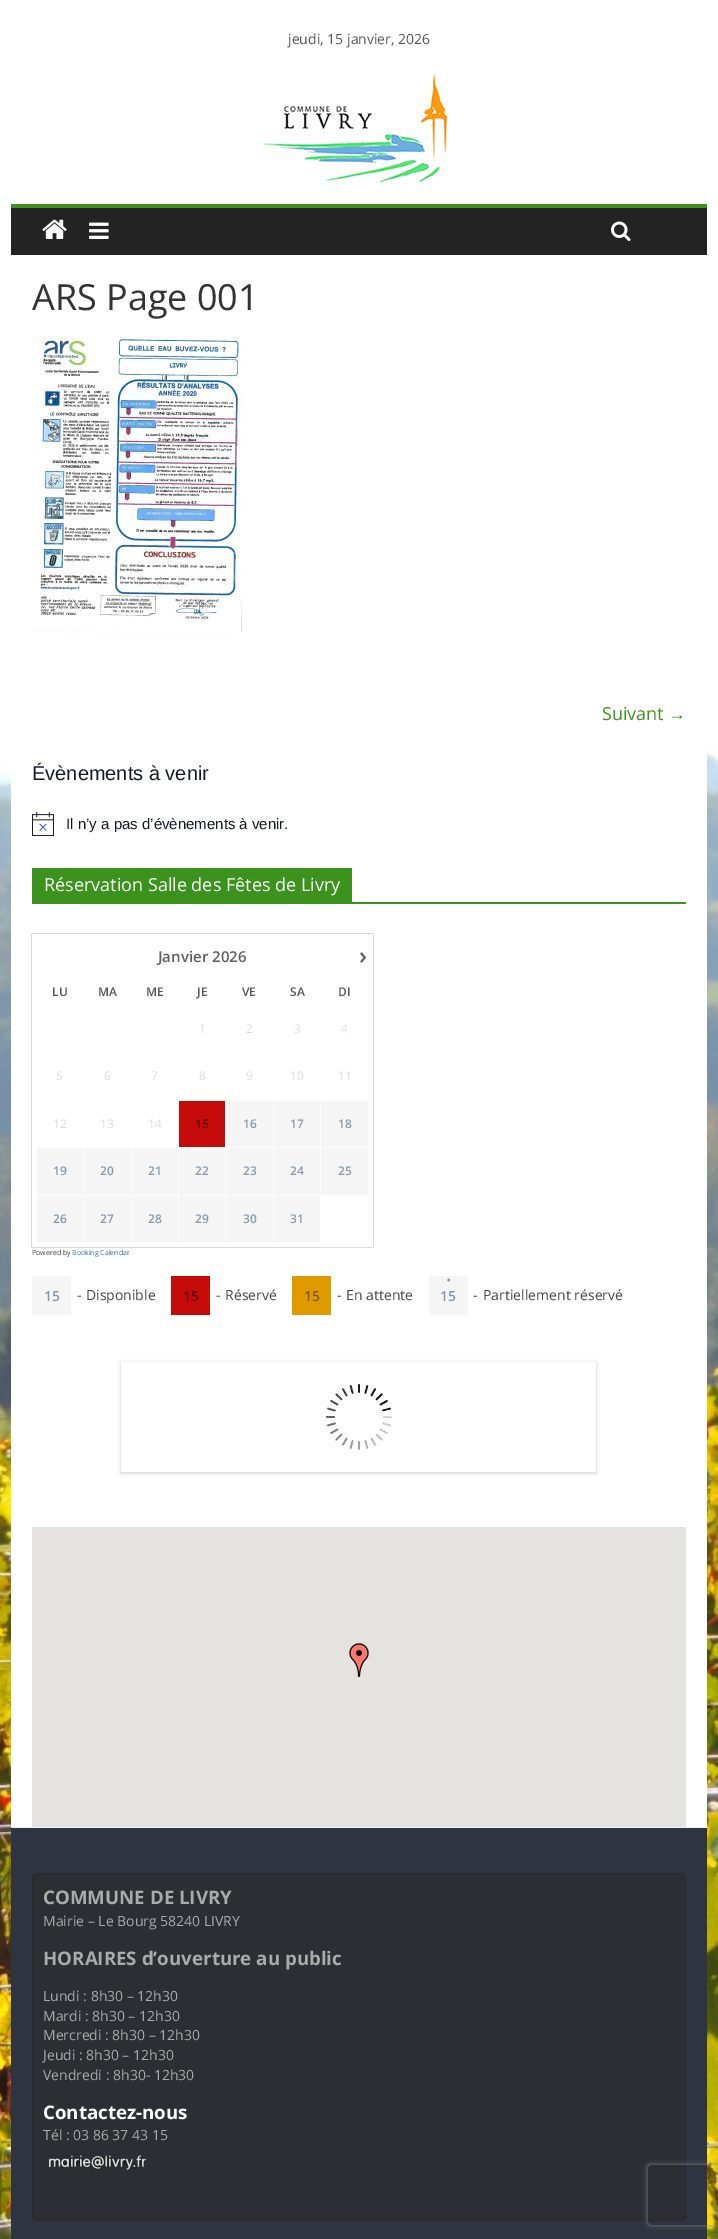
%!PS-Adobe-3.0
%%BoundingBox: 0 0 718 2239
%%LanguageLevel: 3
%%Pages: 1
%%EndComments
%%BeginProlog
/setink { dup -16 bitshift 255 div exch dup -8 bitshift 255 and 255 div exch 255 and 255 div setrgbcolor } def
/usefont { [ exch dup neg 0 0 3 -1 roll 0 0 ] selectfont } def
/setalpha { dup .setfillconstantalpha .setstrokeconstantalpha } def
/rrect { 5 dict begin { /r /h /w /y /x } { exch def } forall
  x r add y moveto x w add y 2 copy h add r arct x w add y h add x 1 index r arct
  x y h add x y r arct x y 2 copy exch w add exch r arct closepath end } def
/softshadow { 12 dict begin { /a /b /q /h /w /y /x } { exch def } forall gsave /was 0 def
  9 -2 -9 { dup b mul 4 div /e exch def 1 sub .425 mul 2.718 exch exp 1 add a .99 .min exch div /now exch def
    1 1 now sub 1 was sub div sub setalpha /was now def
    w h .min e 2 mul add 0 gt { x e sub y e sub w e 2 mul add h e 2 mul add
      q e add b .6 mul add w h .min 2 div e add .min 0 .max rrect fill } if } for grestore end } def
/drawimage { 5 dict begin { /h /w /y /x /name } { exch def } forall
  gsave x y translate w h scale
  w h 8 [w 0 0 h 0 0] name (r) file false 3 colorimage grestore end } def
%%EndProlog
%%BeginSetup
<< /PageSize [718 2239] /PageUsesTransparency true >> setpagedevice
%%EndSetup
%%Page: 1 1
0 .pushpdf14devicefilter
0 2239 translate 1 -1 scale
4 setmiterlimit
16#FFFFFF setink
0 0 718 2239 rectfill
(img1.raw) 0 0 718 2239 drawimage
/OpenSans-Regular 14 usefont
16#555555 setink
288 44 moveto (jeudi, 15 janvier, 2026) show
(img2.raw) 262 74 186 109 drawimage
16#232323 setink
11 208 696 47 rectfill
16#3B931D setink
11 204 696 4 rectfill
(img3.raw) 42 219 25 20 drawimage
(img4.raw) 89 222 20 17 drawimage
(img5.raw) 611 221 20 20 drawimage
16#FFFFFF setink
11 747 696 1080 rectfill
/OpenSans-Regular 36 usefont
16#333333 setink
32 310 moveto (ARS Page 001) show
(img6.raw) 32 336 211 297 drawimage
/OpenSans-Regular 18 usefont
16#3B931D setink
602 720 moveto (Suivant) show
/LiberationSerif-Regular 18 usefont
668 720 moveto (→) show
/LiberationSans-Regular 20 usefont
16#141827 setink
32 780 moveto (Évènements à venir) show
(img7.raw) 32 812 22 24 drawimage
/LiberationSans-Regular 15 usefont
66 829 moveto (Il n’y a pas d’évènements à venir.) show
16#3B931D setink
32 902 654 2 rectfill
32 868 320 34 rectfill
/OpenSans-Regular 18 usefont
16#FFFFFF setink
44 891 moveto (Réservation Salle des Fêtes de Livry) show
gsave
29 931 moveto 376 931 lineto 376 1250 lineto 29 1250 lineto closepath 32 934 moveto 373 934 lineto 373 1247 lineto 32 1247 lineto closepath eoclip newpath
16#707070 setink
32 934 341 313 0 0.5 1 softshadow
grestore
/OpenSans-SemiBold 15 usefont
16#5F5F5F setink
158 962 moveto (Janvier) show
212 962 moveto (2026) show
/OpenSans-SemiBold 12 usefont
16#555555 setink
[
    [(LU) 52 996]
    [(MA) 98 996]
    [(ME) 146 996]
    [(JE) 197 996]
    [(VE) 242 996]
    [(SA) 290 996]
    [(DI) 338 996]
] { aload pop moveto show } forall
/OpenSans-Regular 12 usefont
16#DDDDDD setink
[
    [(1) 199 1033]
    [(2) 246 1033]
    [(3) 294 1033]
    [(4) 341 1033]
    [(5) 56 1080]
    [(6) 104 1080]
    [(7) 151 1080]
    [(8) 199 1080]
    [(9) 246 1080]
    [(10) 290 1080]
    [(11) 338 1080]
    [(12) 53 1128]
    [(13) 100 1128]
    [(14) 148 1128]
] { aload pop moveto show } forall
16#C60B0B setink
179 1101 46 46 rectfill
/OpenSans-SemiBold 12 usefont
16#5F0000 setink
195 1128 moveto (15) show
16#F5F5F5 setink
226 1101 47 46 rectfill
16#8899AA setink
243 1128 moveto (16) show
16#F5F5F5 setink
274 1101 46 46 rectfill
16#8899AA setink
290 1128 moveto (17) show
16#F5F5F5 setink
321 1101 47 46 rectfill
16#8899AA setink
338 1128 moveto (18) show
16#F5F5F5 setink
37 1148 46 47 rectfill
16#8899AA setink
53 1175 moveto (19) show
16#F5F5F5 setink
84 1148 47 47 rectfill
16#8899AA setink
100 1175 moveto (20) show
16#F5F5F5 setink
132 1148 46 47 rectfill
16#8899AA setink
148 1175 moveto (21) show
16#F5F5F5 setink
179 1148 46 47 rectfill
16#8899AA setink
195 1175 moveto (22) show
16#F5F5F5 setink
226 1148 47 47 rectfill
16#8899AA setink
243 1175 moveto (23) show
16#F5F5F5 setink
274 1148 46 47 rectfill
16#8899AA setink
290 1175 moveto (24) show
16#F5F5F5 setink
321 1148 47 47 rectfill
16#8899AA setink
338 1175 moveto (25) show
16#F5F5F5 setink
37 1196 46 46 rectfill
16#8899AA setink
53 1223 moveto (26) show
16#F5F5F5 setink
84 1196 47 46 rectfill
16#8899AA setink
100 1223 moveto (27) show
16#F5F5F5 setink
132 1196 46 46 rectfill
16#8899AA setink
148 1223 moveto (28) show
16#F5F5F5 setink
179 1196 46 46 rectfill
16#8899AA setink
195 1223 moveto (29) show
16#F5F5F5 setink
226 1196 47 46 rectfill
16#8899AA setink
243 1223 moveto (30) show
16#F5F5F5 setink
274 1196 46 46 rectfill
16#8899AA setink
290 1223 moveto (31) show
/OpenSans-SemiBold 24 usefont
16#5F5F5F setink
359 964 moveto (›) show
/OpenSans-Regular 7 usefont
16#444444 setink
32 1255 moveto (Powered by) show
16#337AB7 setink
72 1255 moveto (Booking Calendar) show
16#F5F5F5 setink
32 1276 39 39 rectfill
/OpenSans-SemiBold 14 usefont
16#8899AA setink
44 1301 moveto (15) show
/OpenSans-Regular 14 usefont
16#444444 setink
77 1300 moveto (-) show
86 1300 moveto (Disponible) show
16#C60B0B setink
171 1276 39 39 rectfill
/OpenSans-SemiBold 14 usefont
16#5F0000 setink
183 1301 moveto (15) show
/OpenSans-Regular 14 usefont
16#444444 setink
216 1300 moveto (-) show
225 1300 moveto (Réservé) show
16#DF9A00 setink
292 1276 39 39 rectfill
/OpenSans-SemiBold 14 usefont
16#885500 setink
304 1301 moveto (15) show
/OpenSans-Regular 14 usefont
16#444444 setink
337 1300 moveto (-) show
346 1300 moveto (En attente) show
16#F5F5F5 setink
429 1276 39 39 rectfill
/OpenSans-SemiBold 20 usefont
16#8899AA setink
446 1287 moveto (·) show
/OpenSans-SemiBold 14 usefont
440 1301 moveto (15) show
/OpenSans-Regular 14 usefont
16#444444 setink
473 1300 moveto (-) show
483 1300 moveto (Partiellement réservé) show
gsave
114 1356 moveto 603 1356 lineto 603 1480 lineto 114 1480 lineto closepath 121 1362 moveto 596 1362 lineto 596 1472 lineto 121 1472 lineto closepath eoclip newpath
16#000000 setink
121 1363 475 110 0 2 0.2 softshadow
grestore
(img8.raw) 326 1384 66 66 drawimage
16#E5E3DF setink
32 1527 654 300 rectfill
(img9.raw) 349 1643 20 34 drawimage
16#303440 setink
11 1828 696 411 rectfill
16#F2F2F2 setink
11 1827 696 1 rectfill
16#2C2E34 setink
32 1873 654 348 5 rrect fill
0.1 setalpha
16#000000 setink
32.5 1873.5 653 347 4.5 rrect stroke
/OpenSans-Bold 18.7 usefont
1 setalpha
16#AAAAAA setink
43 1904 moveto (COMMUNE DE LIVRY) show
/OpenSans-Regular 14 usefont
43 1926 moveto (Mairie – Le Bourg 58240 LIVRY) show
/OpenSans-Bold 18.7 usefont
43 1965 moveto (HORAIRES d’ouverture au public) show
/OpenSans-Regular 14 usefont
[
    [(Lundi : 8h30 – 12h30) 43 2001]
    [(Mardi : 8h30 – 12h30) 43 2021]
    [(Mercredi : 8h30 – 12h30) 43 2040]
    [(Jeudi : 8h30 – 12h30) 43 2060]
    [(Vendredi : 8h30- 12h30) 43 2080]
] { aload pop moveto show } forall
/OpenSans-Bold 18.7 usefont
16#FFFFFF setink
43 2119 moveto (Contactez-nous) show
/OpenSans-Regular 14 usefont
16#AAAAAA setink
43 2140 moveto (Tél : 03 86 37 43 15) show
(img10.raw) 49 2155 98 15 drawimage
gsave
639 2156 moveto 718 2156 lineto 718 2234 lineto 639 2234 lineto closepath 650 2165 moveto 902 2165 lineto 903 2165 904 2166 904 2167 curveto 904 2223 lineto 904 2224 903 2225 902 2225 curveto 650 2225 lineto 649 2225 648 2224 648 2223 curveto 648 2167 lineto 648 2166 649 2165 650 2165 curveto closepath eoclip newpath
16#808080 setink
648 2165 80 60 2 2.5 1 softshadow
grestore
.poppdf14devicefilter showpage
%%EOF
